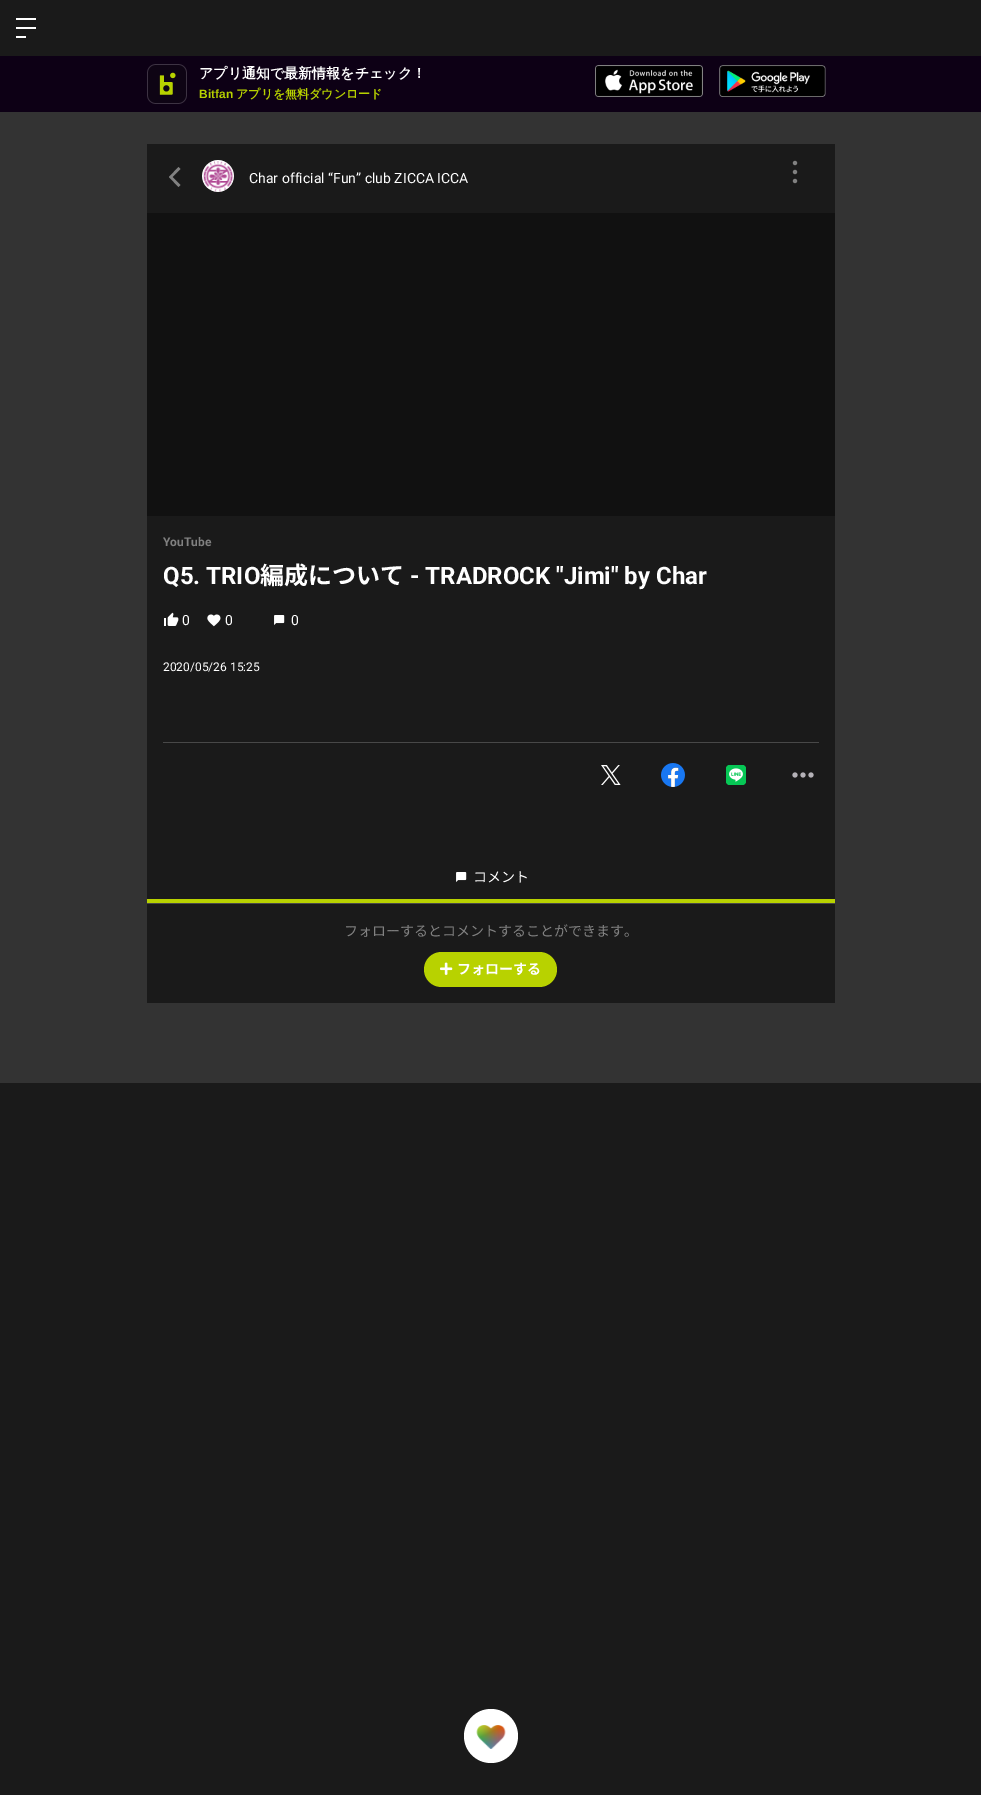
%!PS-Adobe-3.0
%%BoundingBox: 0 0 981 1795
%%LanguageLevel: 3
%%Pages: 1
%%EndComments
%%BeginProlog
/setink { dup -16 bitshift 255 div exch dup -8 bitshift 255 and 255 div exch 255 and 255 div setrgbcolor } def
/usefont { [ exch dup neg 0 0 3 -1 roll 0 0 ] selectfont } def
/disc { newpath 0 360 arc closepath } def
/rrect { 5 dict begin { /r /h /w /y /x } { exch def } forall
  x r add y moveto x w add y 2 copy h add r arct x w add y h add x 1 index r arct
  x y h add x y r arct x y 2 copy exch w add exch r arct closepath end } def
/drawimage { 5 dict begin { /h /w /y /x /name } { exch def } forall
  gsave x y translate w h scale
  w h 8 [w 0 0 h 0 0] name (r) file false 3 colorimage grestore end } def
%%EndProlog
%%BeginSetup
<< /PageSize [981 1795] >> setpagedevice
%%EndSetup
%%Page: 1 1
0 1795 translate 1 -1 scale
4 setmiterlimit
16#1A1A1A setink
0 0 981 1795 rectfill
[
    [16 18 20 2 16#FFFFFF]
    [16 27 20 2 16#FFFFFF]
    [16 36 10 2 16#FFFFFF]
    [0 56 981 56 16#0D0015]
] { aload pop setink rectfill } forall
(img1.raw) 147 64 40 40 drawimage
/WenQuanYiZenHei-Bold 14 usefont
16#FFFFFF setink
199 78 moveto (アプリ通知で最新情報をチェック！) show
/LiberationSans-Bold 12 usefont
16#B7D100 setink
199 98 moveto (Bitfan) show
/WenQuanYiZenHei-Bold 12 usefont
236 98 moveto (アプリを無料ダウンロード) show
(img2.raw) 595 65 108 32 drawimage
(img3.raw) 719 65 107 32 drawimage
16#333333 setink
0 112 981 971 rectfill
16#1A1A1A setink
147 144 688 859 rectfill
16#818181 setink
180.5 169 moveto 178.5 167 lineto 169 177 lineto 178.5 187 lineto 180.5 185 lineto 172.5 177 lineto closepath fill
(img4.raw) 202 160 32 32 drawimage
/Roboto-Regular 14 usefont
16#FFFFFF setink
249 183 moveto (Char official “Fun” club ZICCA ICCA) show
(img5.raw) 792 160 6 24 drawimage
16#111111 setink
147 213 688 303 rectfill
/Roboto-Bold 12 usefont
16#818181 setink
163 546 moveto (YouTube) show
/Roboto-Bold 24 usefont
16#FFFFFF setink
163 584 moveto (Q5. TRIO) show
/NotoSansJP-Bold 24 usefont
260 584 moveto (編成について) show
/Roboto-Bold 24 usefont
410 584 moveto (- TRADROCK "Jimi" by Char) show
(img6.raw) 164 612 15 14 drawimage
/Roboto-Regular 14 usefont
182 625 moveto (0) show
(img7.raw) 207 614 14 13 drawimage
225 625 moveto (0) show
(img8.raw) 274 615 11 10 drawimage
291 625 moveto (0) show
/Roboto-Regular 12 usefont
163 671 moveto (2020/05/26 15:25) show
16#484848 setink
163 742 656 1 rectfill
(img9.raw) 601 765 20 20 drawimage
(img10.raw) 661 763 24 24 drawimage
(img11.raw) 726 765 20 20 drawimage
(img12.raw) 792 772 22 6 drawimage
147 903 688 1 rectfill
16#B8D200 setink
147 899 688 4 rectfill
(img8.raw) 456 872 11 10 drawimage
/NotoSansJP-Regular 14 usefont
16#FFFFFF setink
473 882 moveto (コメント) show
16#818181 setink
344 936 moveto (フォローするとコメントすることができます。) show
16#B8D200 setink
424 952 133 35 17.5 rrect fill
(img13.raw) 440 962 13 13 drawimage
/NotoSansJP-Bold 14 usefont
16#FFFFFF setink
457 974 moveto (フォローする) show
491 1736 27 disc fill
(img14.raw) 476 1725 30 24 drawimage
showpage
%%EOF
